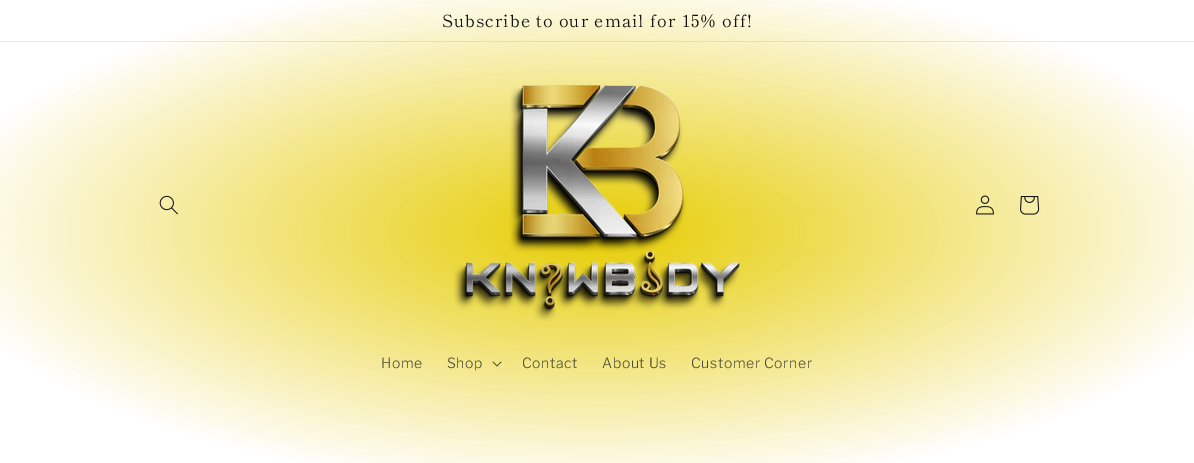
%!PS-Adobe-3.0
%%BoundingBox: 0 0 1194 463
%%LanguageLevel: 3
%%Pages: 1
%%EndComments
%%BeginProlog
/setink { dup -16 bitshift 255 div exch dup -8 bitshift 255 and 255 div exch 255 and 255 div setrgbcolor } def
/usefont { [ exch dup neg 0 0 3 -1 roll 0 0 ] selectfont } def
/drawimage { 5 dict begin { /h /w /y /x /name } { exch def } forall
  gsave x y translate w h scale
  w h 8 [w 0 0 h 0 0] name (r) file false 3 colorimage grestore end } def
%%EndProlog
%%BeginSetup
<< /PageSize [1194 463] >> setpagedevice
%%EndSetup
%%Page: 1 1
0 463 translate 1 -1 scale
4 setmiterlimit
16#FFFFFF setink
0 0 1194 463 rectfill
gsave 0 0 moveto 1194 0 lineto 1194 463 lineto 0 463 lineto closepath clip newpath 597 232 translate 844 327 scale
<< /ShadingType 3 /ColorSpace /DeviceRGB /Coords [0 0 0 0 0 1] /Extend [true true] /Function << /FunctionType 3 /Domain [0 1] /Functions [<< /FunctionType 2 /Domain [0 1] /C0 [0.902 0.8 0] /C1 [1 1 1] /N 1 >> << /FunctionType 2 /Domain [0 1] /C0 [1 1 1] /C1 [1 1 1] /N 1 >> << /FunctionType 2 /Domain [0 1] /C0 [1 1 1] /C1 [1 1 1] /N 1 >>] /Bounds [0.79 0.97] /Encode [0 1 0 1 0 1] >> >> shfill grestore
gsave 0 41 moveto 1194 41 lineto 1194 42 lineto 0 42 lineto closepath clip newpath 597 232 translate 844 327 scale
<< /ShadingType 3 /ColorSpace /DeviceRGB /Coords [0 0 0 0 0 1] /Extend [true true] /Function << /FunctionType 3 /Domain [0 1] /Functions [<< /FunctionType 2 /Domain [0 1] /C0 [0.835 0.741 0.004] /C1 [0.925 0.925 0.925] /N 1 >> << /FunctionType 2 /Domain [0 1] /C0 [0.925 0.925 0.925] /C1 [0.925 0.925 0.925] /N 1 >> << /FunctionType 2 /Domain [0 1] /C0 [0.925 0.925 0.925] /C1 [0.925 0.925 0.925] /N 1 >>] /Bounds [0.79 0.97] /Encode [0 1 0 1 0 1] >> >> shfill grestore
/ShipporiMincho-Regular 16.9 usefont
16#121212 setink
442 27 moveto 1 0 (Subscribe to our email for 15% off!) ashow
(img1.raw) 159 195 19 20 drawimage
(img2.raw) 454 85 286 236 drawimage
(img3.raw) 976 195 18 20 drawimage
(img4.raw) 1020 196 20 19 drawimage
/LibreFranklin-Light 14 usefont
16#4B4833 setink
381 368 moveto 0.6 0 (Home) ashow
447 368 moveto 0.6 0 (Shop) ashow
(img5.raw) 492 361 10 6 drawimage
522 368 moveto 0.6 0 (Contact) ashow
602 368 moveto 0.6 0 (About Us) ashow
691 368 moveto 0.6 0 (Customer Corner) ashow
showpage
%%EOF
